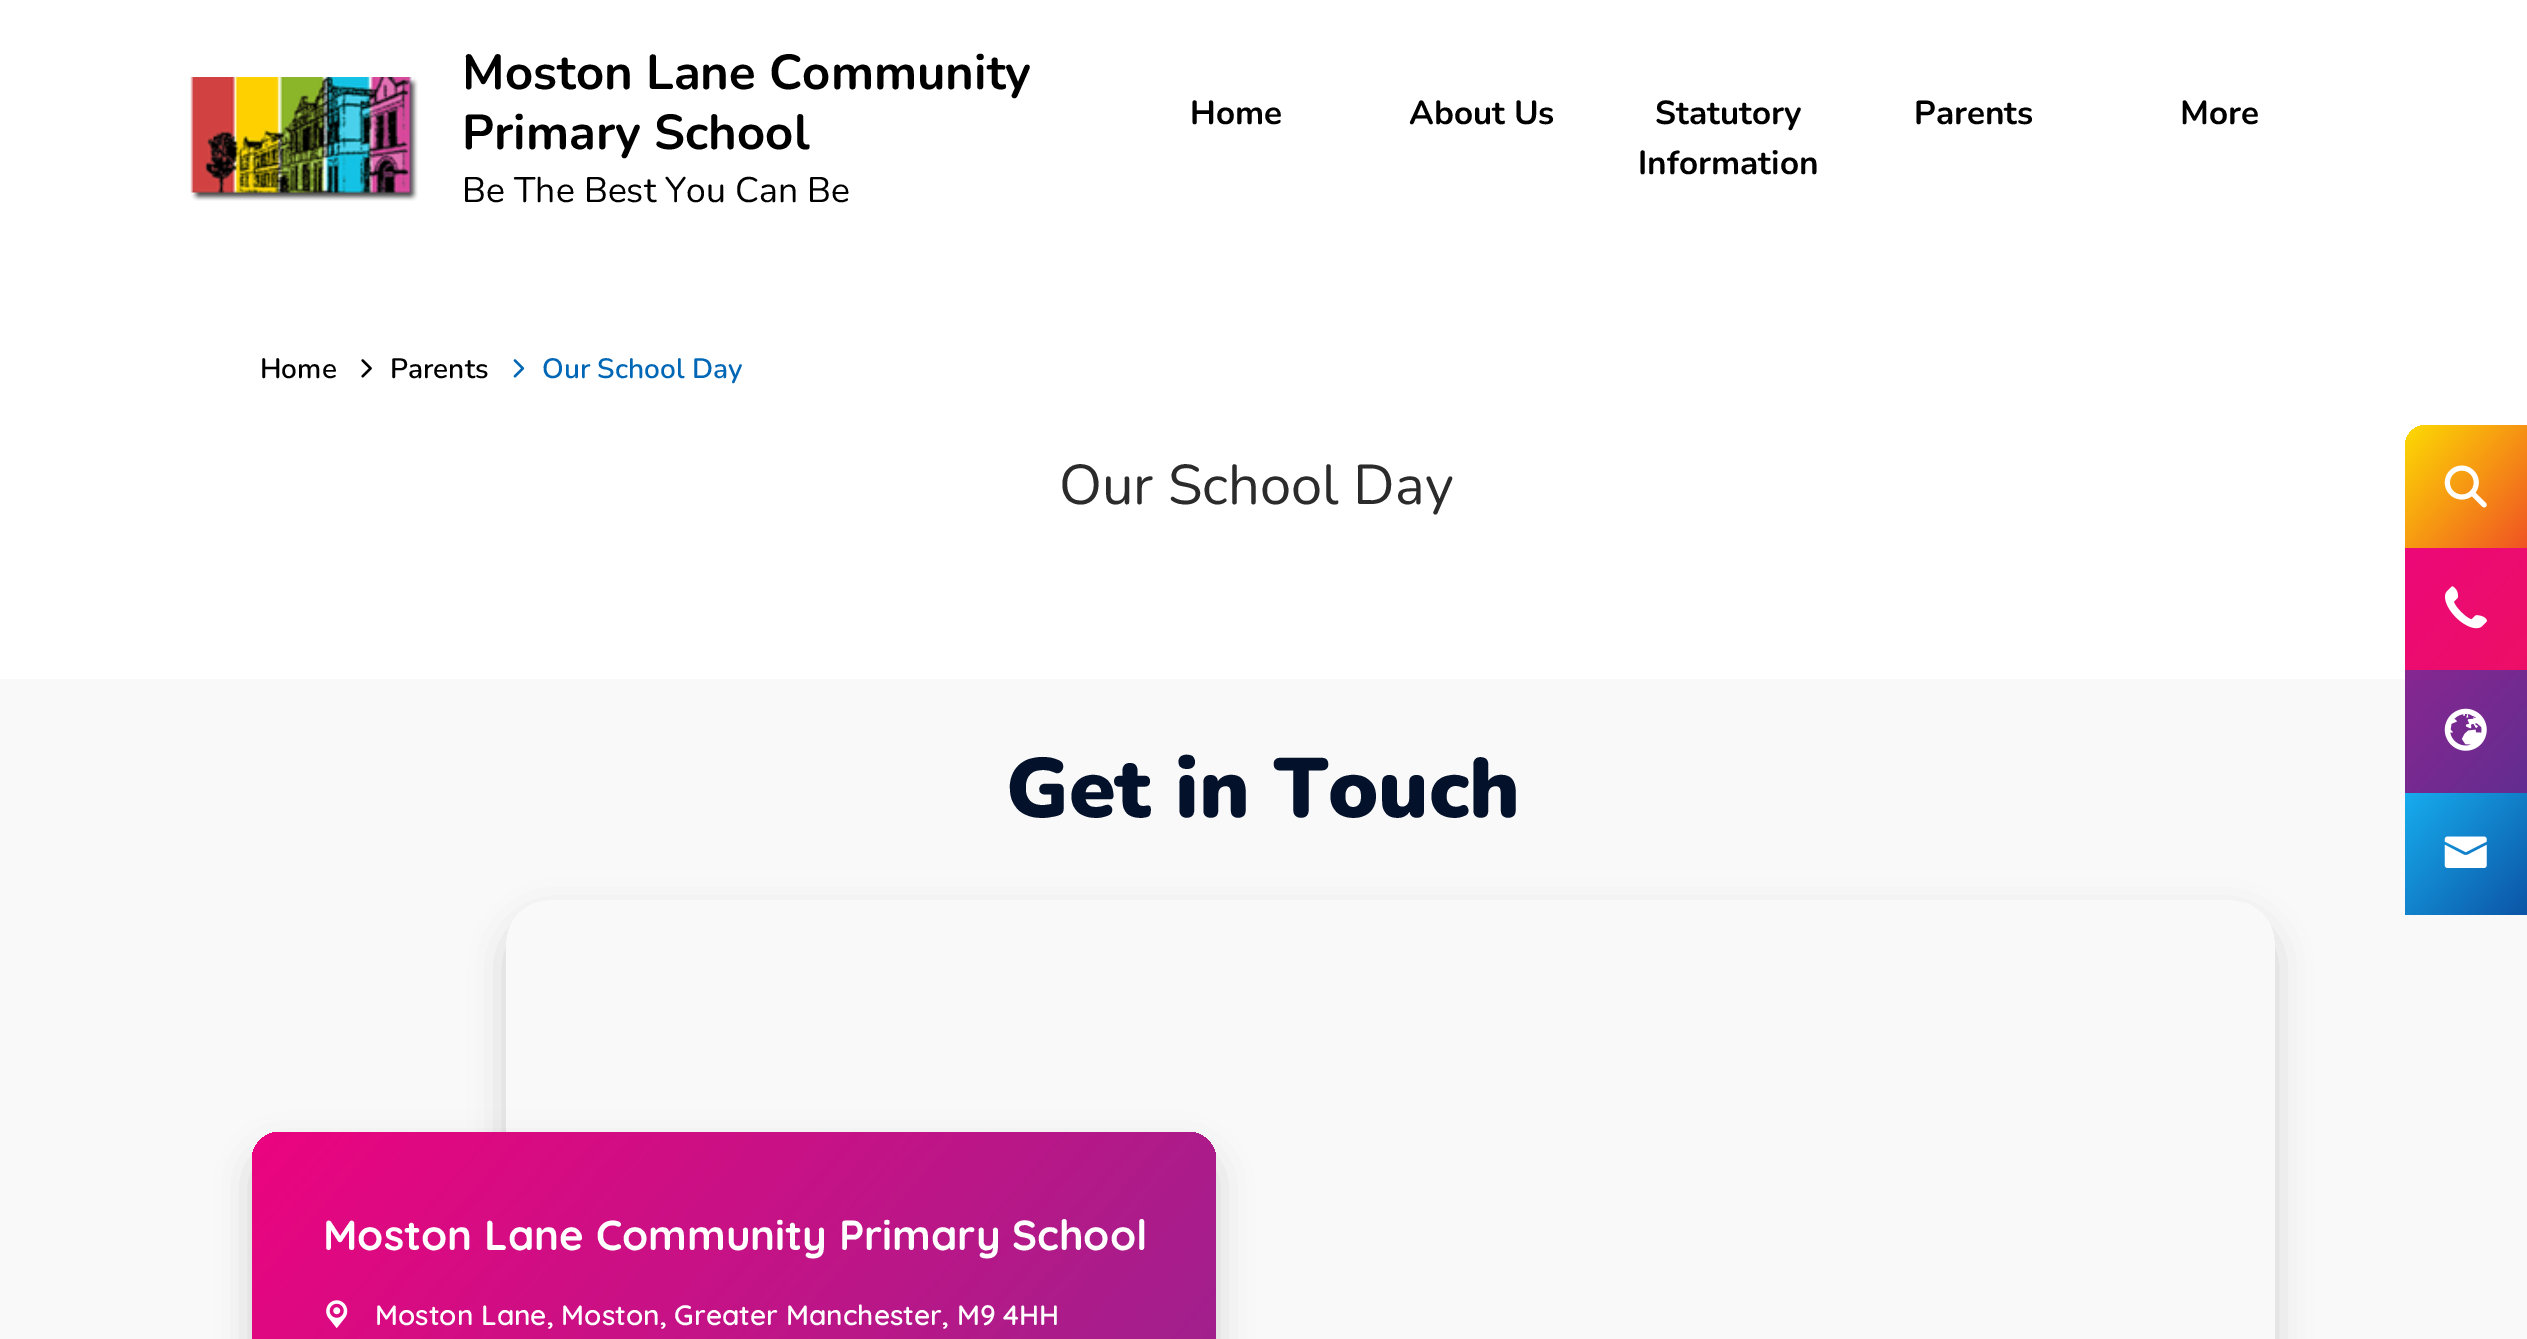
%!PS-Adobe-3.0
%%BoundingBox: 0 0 2527 1339
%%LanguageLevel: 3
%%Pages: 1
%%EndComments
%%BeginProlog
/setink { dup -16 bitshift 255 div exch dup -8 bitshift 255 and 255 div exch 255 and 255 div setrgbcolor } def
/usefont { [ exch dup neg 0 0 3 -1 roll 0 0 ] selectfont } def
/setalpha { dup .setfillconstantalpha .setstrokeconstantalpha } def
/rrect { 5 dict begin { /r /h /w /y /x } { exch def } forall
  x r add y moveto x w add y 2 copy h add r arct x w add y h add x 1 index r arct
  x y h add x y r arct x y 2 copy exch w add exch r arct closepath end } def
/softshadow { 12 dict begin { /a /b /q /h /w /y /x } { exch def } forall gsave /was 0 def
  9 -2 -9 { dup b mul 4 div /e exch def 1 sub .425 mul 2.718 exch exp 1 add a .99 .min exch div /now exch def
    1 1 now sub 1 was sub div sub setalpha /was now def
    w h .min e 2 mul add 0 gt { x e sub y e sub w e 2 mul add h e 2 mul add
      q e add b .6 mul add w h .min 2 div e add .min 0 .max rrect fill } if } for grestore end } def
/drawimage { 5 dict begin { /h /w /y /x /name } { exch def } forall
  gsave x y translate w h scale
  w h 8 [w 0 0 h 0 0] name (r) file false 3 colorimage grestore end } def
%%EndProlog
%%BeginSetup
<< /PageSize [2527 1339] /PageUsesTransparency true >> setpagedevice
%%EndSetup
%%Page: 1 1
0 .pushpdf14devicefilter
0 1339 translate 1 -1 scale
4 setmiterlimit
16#FFFFFF setink
0 0 2527 1339 rectfill
(img1.raw) 190 77 228 124 drawimage
/Nunito-Bold 49.1 usefont
16#000000 setink
462 89 moveto (Moston Lane Community) show
462 149 moveto (Primary School) show
/Nunito-Regular 35.5 usefont
462 202 moveto (Be The Best You Can Be) show
/Nunito-Bold 33.25 usefont
[
    [(Home) 1190 124]
    [(About Us) 1409 124]
    [(Statutory) 1655 124]
    [(Information) 1638 174]
    [(Parents) 1914 124]
    [(More) 2180 124]
] { aload pop moveto show } forall
/Nunito-SemiBold 28 usefont
260 378 moveto (Home) show
(img2.raw) 361 359 11 19 drawimage
390 378 moveto (Parents) show
(img3.raw) 513 359 12 19 drawimage
16#0067B6 setink
542 378 moveto (Our School Day) show
/Nunito-Regular 56 usefont
16#2B2B2B setink
1059 504 moveto (Our School Day) show
gsave 2426 425 moveto 2527 425 lineto 2527 548 lineto 2405 548 lineto 2405 446 lineto 2405 434.5 2414.5 425 2426 425 curveto closepath clip newpath
<< /ShadingType 2 /ColorSpace /DeviceRGB /Coords [2401 430 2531 543] /Extend [true true] /Function << /FunctionType 2 /Domain [0 1] /C0 [0.992 0.859 0.012] /C1 [0.941 0.325 0.137] /N 1 >> >> shfill grestore
(img4.raw) 2444 465 43 43 drawimage
gsave 2405 548 moveto 2527 548 lineto 2527 670 lineto 2405 670 lineto closepath clip newpath
<< /ShadingType 2 /ColorSpace /DeviceRGB /Coords [2401 552 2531 666] /Extend [true true] /Function << /FunctionType 2 /Domain [0 1] /C0 [0.925 0.031 0.471] /C1 [0.925 0.059 0.4] /N 1 >> >> shfill grestore
(img5.raw) 2445 586 42 43 drawimage
16#F9F9F9 setink
0 679 2527 660 rectfill
gsave 2405 670 moveto 2527 670 lineto 2527 793 lineto 2405 793 lineto closepath clip newpath
<< /ShadingType 2 /ColorSpace /DeviceRGB /Coords [2401 675 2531 788] /Extend [true true] /Function << /FunctionType 2 /Domain [0 1] /C0 [0.529 0.153 0.565] /C1 [0.388 0.176 0.569] /N 1 >> >> shfill grestore
(img6.raw) 2444 708 43 43 drawimage
gsave 2405 793 moveto 2527 793 lineto 2527 915 lineto 2405 915 lineto closepath clip newpath
<< /ShadingType 2 /ColorSpace /DeviceRGB /Coords [2401 797 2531 911] /Extend [true true] /Function << /FunctionType 2 /Domain [0 1] /C0 [0.09 0.678 0.933] /C1 [0.047 0.329 0.651] /N 1 >> >> shfill grestore
(img7.raw) 2444 836 43 32 drawimage
/Nunito-Black 84 usefont
16#04112A setink
1006 817 moveto (Get in Touch) show
gsave
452 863 moveto 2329 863 lineto 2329 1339 lineto 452 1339 lineto closepath 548 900 moveto 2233 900 lineto 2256 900 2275 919 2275 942 curveto 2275 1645 lineto 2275 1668 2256 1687 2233 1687 curveto 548 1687 lineto 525 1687 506 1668 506 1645 curveto 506 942 lineto 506 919 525 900 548 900 curveto closepath eoclip newpath
16#000000 setink
506 917 1769 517 42 17.5 0.16 softshadow
grestore
16#000000 setink
252 1150 964 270 28 17.5 0.16 softshadow
gsave 252 1132 964 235 28 rrect clip newpath
<< /ShadingType 2 /ColorSpace /DeviceRGB /Coords [358 1010 1110 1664] /Extend [true true] /Function << /FunctionType 2 /Domain [0 1] /C0 [0.925 0.016 0.498] /C1 [0.588 0.141 0.561] /N 1 >> >> shfill grestore
/Quicksand-Bold 42 usefont
16#FFFFFF setink
323 1250 moveto (Moston Lane Community Primary School) show
(img8.raw) 326 1300 22 29 drawimage
/Quicksand-SemiBold 28 usefont
375 1325 moveto (Moston Lane, Moston, Greater Manchester, M9 4HH) show
.poppdf14devicefilter showpage
%%EOF
